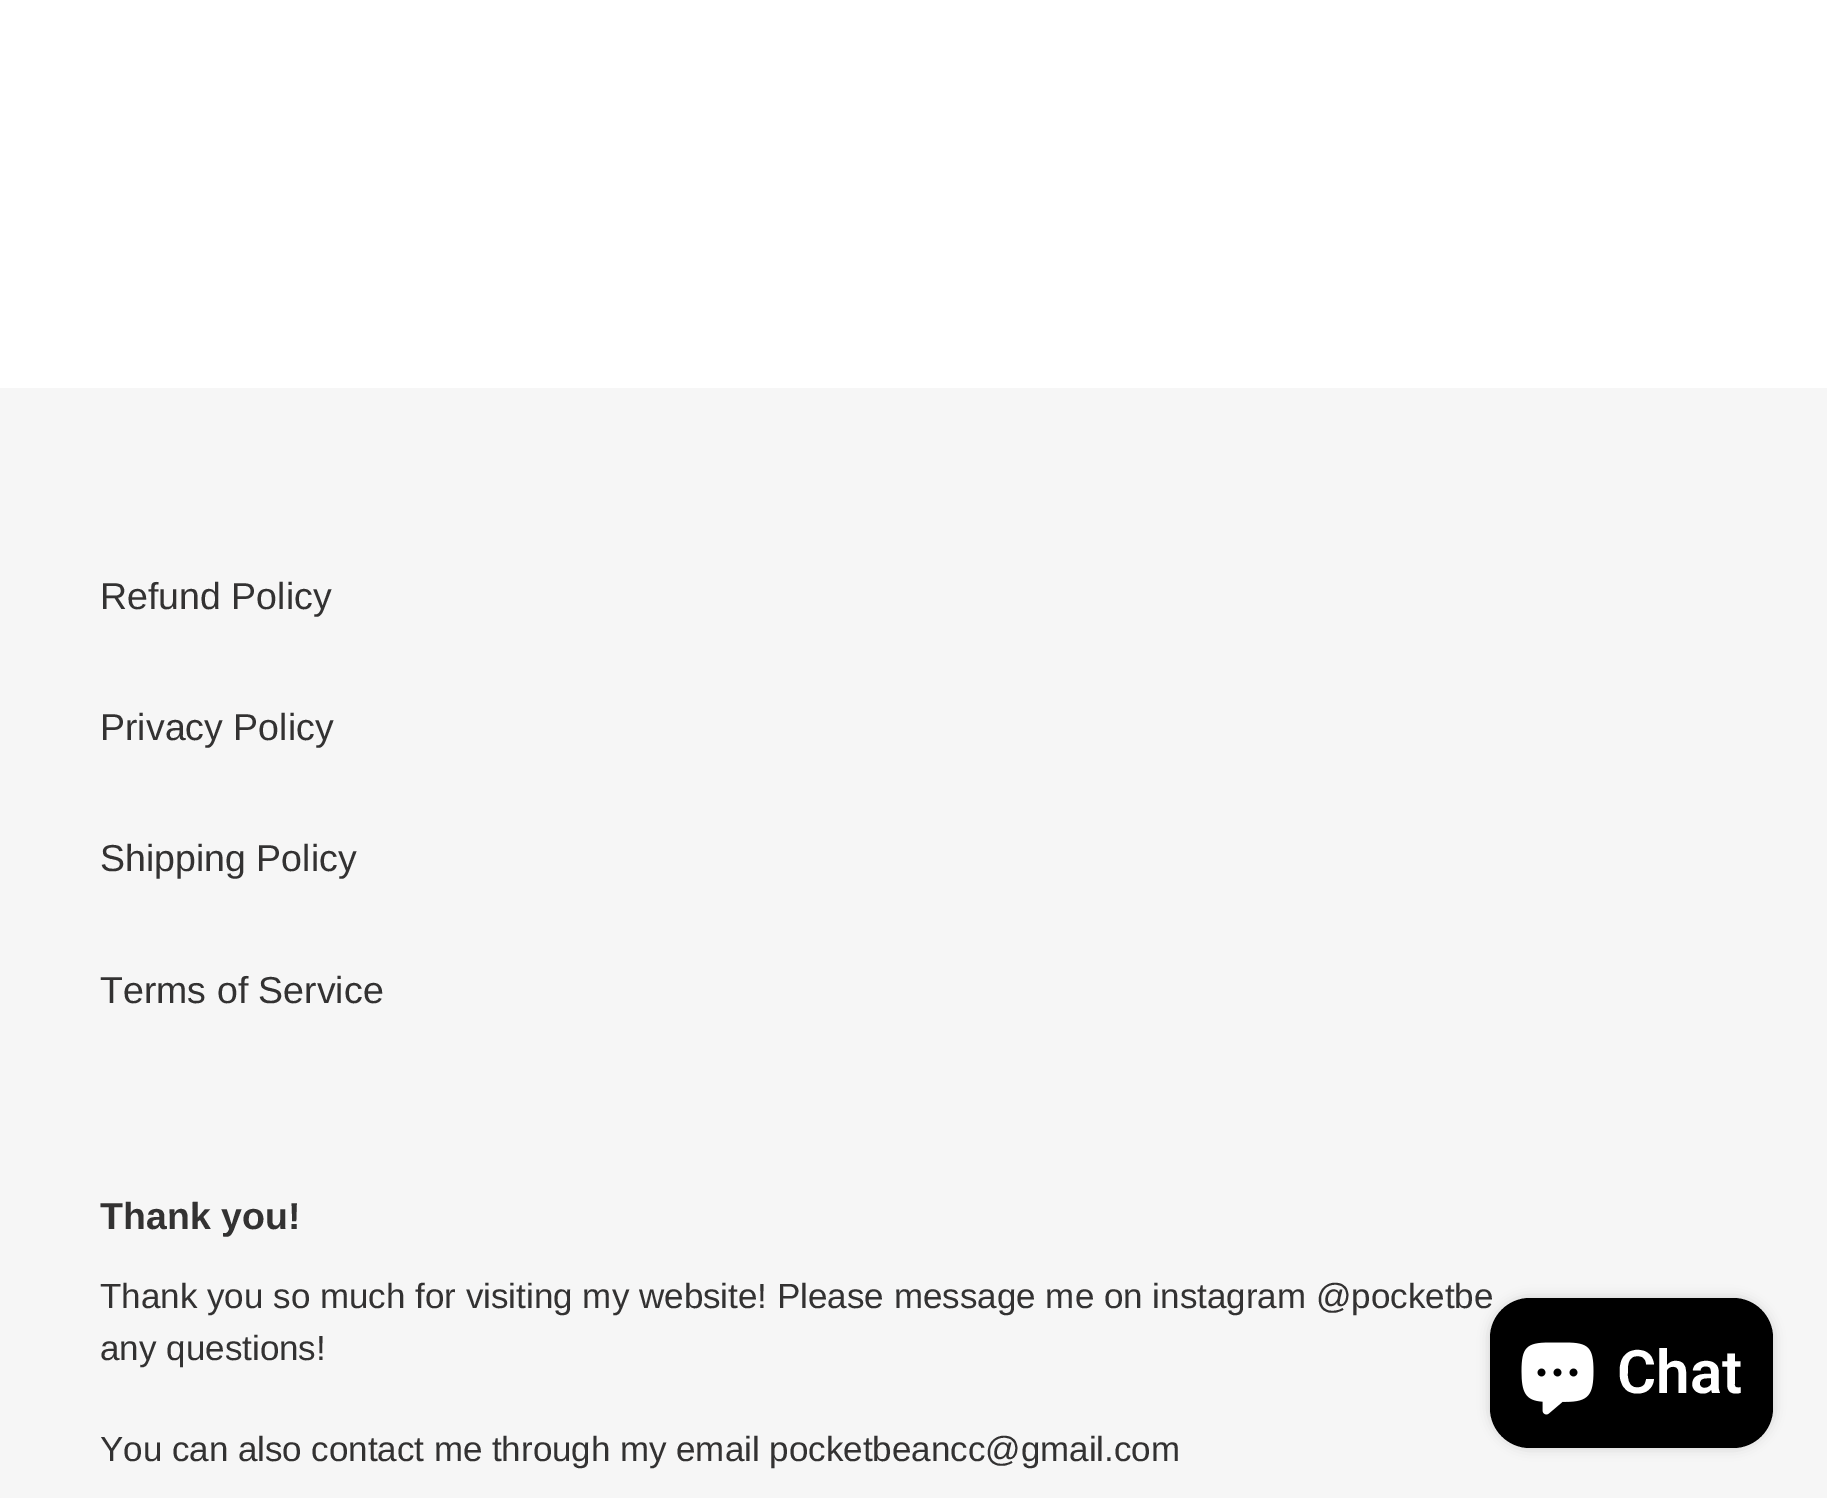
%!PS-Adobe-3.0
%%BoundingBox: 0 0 1827 1498
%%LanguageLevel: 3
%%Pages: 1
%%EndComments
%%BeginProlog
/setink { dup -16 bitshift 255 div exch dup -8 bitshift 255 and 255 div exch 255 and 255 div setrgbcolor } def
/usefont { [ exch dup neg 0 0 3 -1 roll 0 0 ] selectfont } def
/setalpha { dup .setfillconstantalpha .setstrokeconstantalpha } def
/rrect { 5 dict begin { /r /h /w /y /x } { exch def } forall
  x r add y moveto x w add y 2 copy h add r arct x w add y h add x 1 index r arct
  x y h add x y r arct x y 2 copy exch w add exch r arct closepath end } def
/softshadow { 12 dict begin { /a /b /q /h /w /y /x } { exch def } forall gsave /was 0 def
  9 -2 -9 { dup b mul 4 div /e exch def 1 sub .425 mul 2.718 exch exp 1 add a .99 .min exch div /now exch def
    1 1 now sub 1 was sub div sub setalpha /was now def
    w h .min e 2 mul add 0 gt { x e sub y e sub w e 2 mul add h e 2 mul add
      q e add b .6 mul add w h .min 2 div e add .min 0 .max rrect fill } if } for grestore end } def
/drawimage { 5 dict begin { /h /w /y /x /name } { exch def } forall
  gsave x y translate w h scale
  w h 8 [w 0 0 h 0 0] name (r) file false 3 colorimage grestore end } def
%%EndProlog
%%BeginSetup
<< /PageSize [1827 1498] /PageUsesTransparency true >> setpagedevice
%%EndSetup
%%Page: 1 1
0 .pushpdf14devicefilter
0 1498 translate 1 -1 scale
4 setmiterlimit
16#FFFFFF setink
0 0 1827 1498 rectfill
16#F6F6F6 setink
0 388 1827 1110 rectfill
/LiberationSans-Regular 37.5 usefont
16#333232 setink
[
    [(Refund Policy) 100 609]
    [(Privacy Policy) 100 740]
    [(Shipping Policy) 100 871]
    [(Terms of Service) 100 1003]
] { aload pop moveto show } forall
/LiberationSans-Bold 37.5 usefont
100 1229 moveto (Thank you!) show
/LiberationSans-Regular 35 usefont
100 1308 moveto (Thank you so much for visiting my website! Please message me on instagram @pocketbe) show
100 1360 moveto (any questions!) show
100 1461 moveto -0.25 0 32 (You can also contact me through my email pocketbeancc@gmail.com) widthshow
16#000000 setink
1490 1298 283 150 40 6 0.15 softshadow
1490 1298 283 150 40 rrect fill
(img1.raw) 1521 1342 73 73 drawimage
/Roboto-SemiBold 60 usefont
16#FFFFFF setink
1617 1393 moveto (Chat) show
.poppdf14devicefilter showpage
%%EOF
